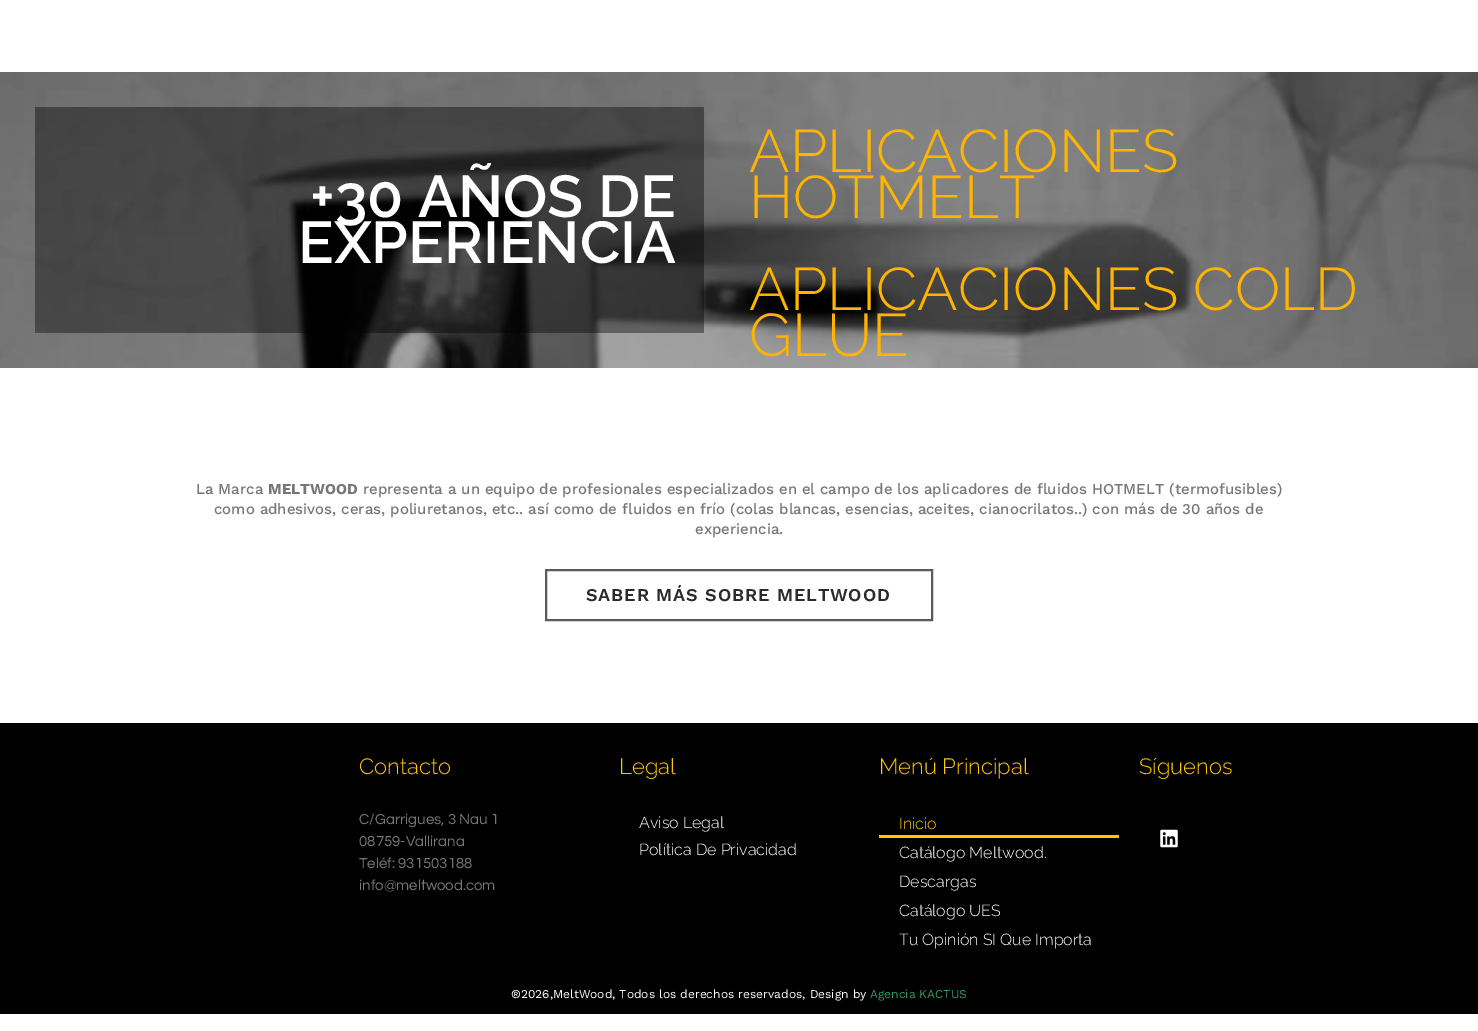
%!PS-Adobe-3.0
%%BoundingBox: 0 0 1478 1031
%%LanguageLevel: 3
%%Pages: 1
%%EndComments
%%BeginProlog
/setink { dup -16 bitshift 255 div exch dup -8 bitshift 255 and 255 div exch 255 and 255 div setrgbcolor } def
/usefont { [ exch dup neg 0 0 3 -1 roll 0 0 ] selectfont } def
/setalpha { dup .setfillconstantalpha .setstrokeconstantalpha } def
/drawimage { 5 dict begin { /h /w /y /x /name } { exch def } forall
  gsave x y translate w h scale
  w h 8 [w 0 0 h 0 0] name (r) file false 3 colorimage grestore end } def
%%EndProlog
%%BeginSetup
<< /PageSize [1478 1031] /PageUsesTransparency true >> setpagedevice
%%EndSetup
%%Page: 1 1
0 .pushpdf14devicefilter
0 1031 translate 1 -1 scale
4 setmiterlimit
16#FFFFFF setink
0 0 1478 1031 rectfill
(img1.raw) 0 72 1478 296 drawimage
0.4 setalpha
16#000000 setink
35 107 669 226 rectfill
/Raleway-SemiBold 59 usefont
1 setalpha
16#FFFFFF setink
310 217 moveto (+30 AÑOS DE) show
298 263 moveto (EXPERIENCIA) show
/Raleway-Light 60 usefont
16#FFB400 setink
[
    [(APLICACIONES) 749 172]
    [(HOTMELT) 749 218]
    [(APLICACIONES COLD) 749 310]
    [(GLUE) 749 356]
] { aload pop moveto show } forall
/WorkSans-Medium 15 usefont
16#777777 setink
196 494 moveto (La Marca) show
/WorkSans-Bold 15 usefont
268 494 moveto (MELTWOOD) show
/WorkSans-Medium 15 usefont
[
    [(representa a un equipo de profesionales especializados en el campo de los aplicadores de fluidos HOTMELT \(termofusibles\)) 363 494]
    [(como adhesivos, ceras, poliuretanos, etc.. así como de fluidos en frío \(colas blancas, esencias, aceites, cianocrilatos..\) con más de 30 años de) 214 514]
    [(experiencia.) 695 534]
] { aload pop moveto show } forall
16#5C5B5B setink
2 setlinewidth
546 570 386 50 rectstroke
/WorkSans-SemiBold 18 usefont
16#2B2B2B setink
586 601 moveto 0.9 0 (SABER MÁS SOBRE MELTWOOD) ashow
16#000000 setink
0 723 1478 291 rectfill
/Raleway-Light 22 usefont
16#FFC800 setink
359 774 moveto (Contacto) show
/Questrial-Regular 15 usefont
16#777777 setink
[
    [(C/Garrigues, 3 Nau 1) 359 824]
    [(08759-Vallirana) 359 846]
    [(Teléf: 931503188) 359 868]
    [(info@meltwood.com) 359 890]
] { aload pop moveto show } forall
/Raleway-Light 22 usefont
16#FFC800 setink
619 774 moveto (Legal) show
/Raleway-Light 16 usefont
16#FFFFFF setink
639 828 moveto (Aviso Legal) show
639 855 moveto (Política De Privacidad) show
/Raleway-Light 22 usefont
16#FFC800 setink
879 774 moveto (Menú Principal) show
/Raleway-Light 16 usefont
899 829 moveto (Inicio) show
879 835 240 3 rectfill
16#FFFFFF setink
[
    [(Catálogo Meltwood.) 899 858]
    [(Descargas) 899 887]
    [(Catálogo UES) 899 916]
    [(Tu Opinión SI Que Importa) 899 945]
] { aload pop moveto show } forall
/Raleway-Light 22 usefont
16#FFC800 setink
1139 774 moveto (Síguenos) show
(img2.raw) 1160 829 18 19 drawimage
/WorkSans-Regular 12 usefont
16#FFFFFF setink
511 998 moveto (®2026,MeltWood, Todos los derechos reservados, Design by) show
16#339966 setink
870 998 moveto (Agencia KACTUS) show
.poppdf14devicefilter showpage
%%EOF
